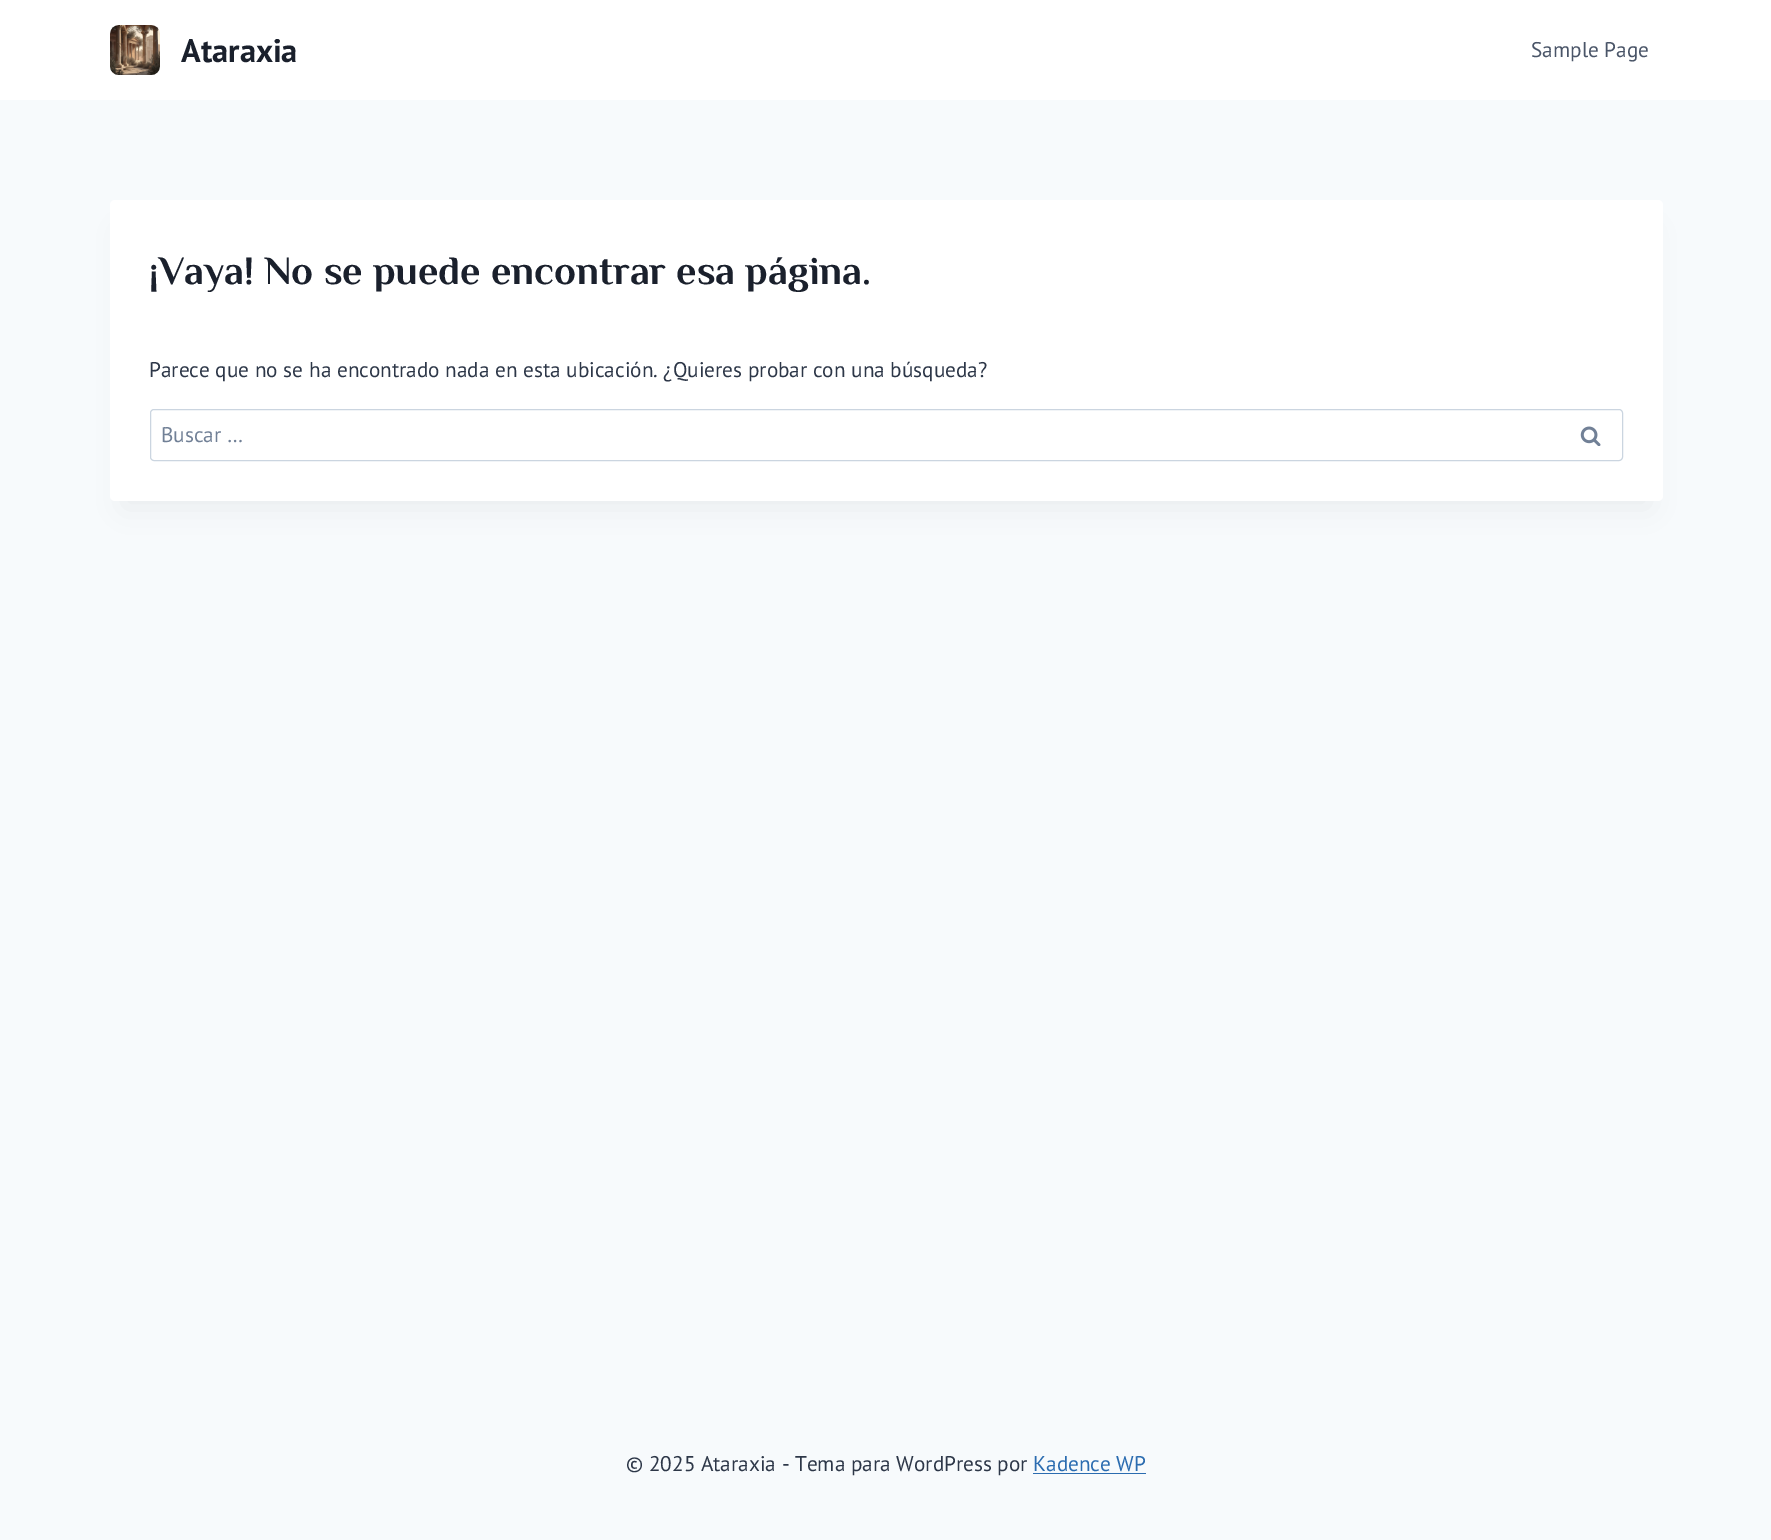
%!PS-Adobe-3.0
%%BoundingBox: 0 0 1771 1540
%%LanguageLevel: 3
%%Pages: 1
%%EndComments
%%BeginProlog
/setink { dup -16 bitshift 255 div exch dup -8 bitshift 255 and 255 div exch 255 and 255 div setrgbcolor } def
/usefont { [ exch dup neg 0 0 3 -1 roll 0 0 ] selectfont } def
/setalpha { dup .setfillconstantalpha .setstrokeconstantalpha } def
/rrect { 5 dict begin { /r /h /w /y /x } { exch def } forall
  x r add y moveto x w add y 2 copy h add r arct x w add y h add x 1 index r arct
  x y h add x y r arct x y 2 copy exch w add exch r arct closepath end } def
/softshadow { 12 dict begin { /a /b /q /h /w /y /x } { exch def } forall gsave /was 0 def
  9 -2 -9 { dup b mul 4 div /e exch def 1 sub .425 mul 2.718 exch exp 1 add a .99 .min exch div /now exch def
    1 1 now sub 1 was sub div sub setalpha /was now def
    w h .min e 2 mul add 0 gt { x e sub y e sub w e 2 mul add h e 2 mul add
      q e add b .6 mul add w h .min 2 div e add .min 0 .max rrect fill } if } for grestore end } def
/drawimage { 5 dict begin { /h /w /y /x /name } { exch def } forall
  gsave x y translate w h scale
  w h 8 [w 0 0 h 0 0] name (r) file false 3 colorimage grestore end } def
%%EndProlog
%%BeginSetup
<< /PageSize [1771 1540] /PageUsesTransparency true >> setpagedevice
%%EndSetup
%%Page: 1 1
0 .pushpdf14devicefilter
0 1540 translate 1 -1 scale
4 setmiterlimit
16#F7FAFC setink
0 0 1771 1540 rectfill
16#FFFFFF setink
0 0 1771 100 rectfill
(img1.raw) 110 25 50 50 drawimage
/PTSans-Bold 32.5 usefont
16#1A202C setink
181 62 moveto (Ataraxia) show
/PTSans-Regular 21.25 usefont
16#4A5568 setink
1531 57 moveto (Sample Page) show
16#000000 setink
123 231 1527 277 0 15.5 0.05 softshadow
16#FFFFFF setink
110 200 1553 301 5 rrect fill
/Philosopher-Bold 40 usefont
16#1A202C setink
149 284 moveto (¡Vaya! No se puede encontrar esa página.) show
/PTSans-Regular 21.25 usefont
16#2D3748 setink
149 377 moveto (Parece que no se ha encontrado nada en esta ubicación. ¿Quieres probar con una búsqueda?) show
16#CBD5E0 setink
150.5 409.5 1472 51 3.5 rrect stroke
16#718096 setink
161 442 moveto (Buscar …) show
(img2.raw) 1580 426 21 20 drawimage
16#2D3748 setink
626 1471 moveto (© 2025 Ataraxia - Tema para WordPress por) show
16#2B6CB0 setink
1033 1471 moveto (Kadence WP) show
1033 1473 113 1 rectfill
.poppdf14devicefilter showpage
%%EOF
